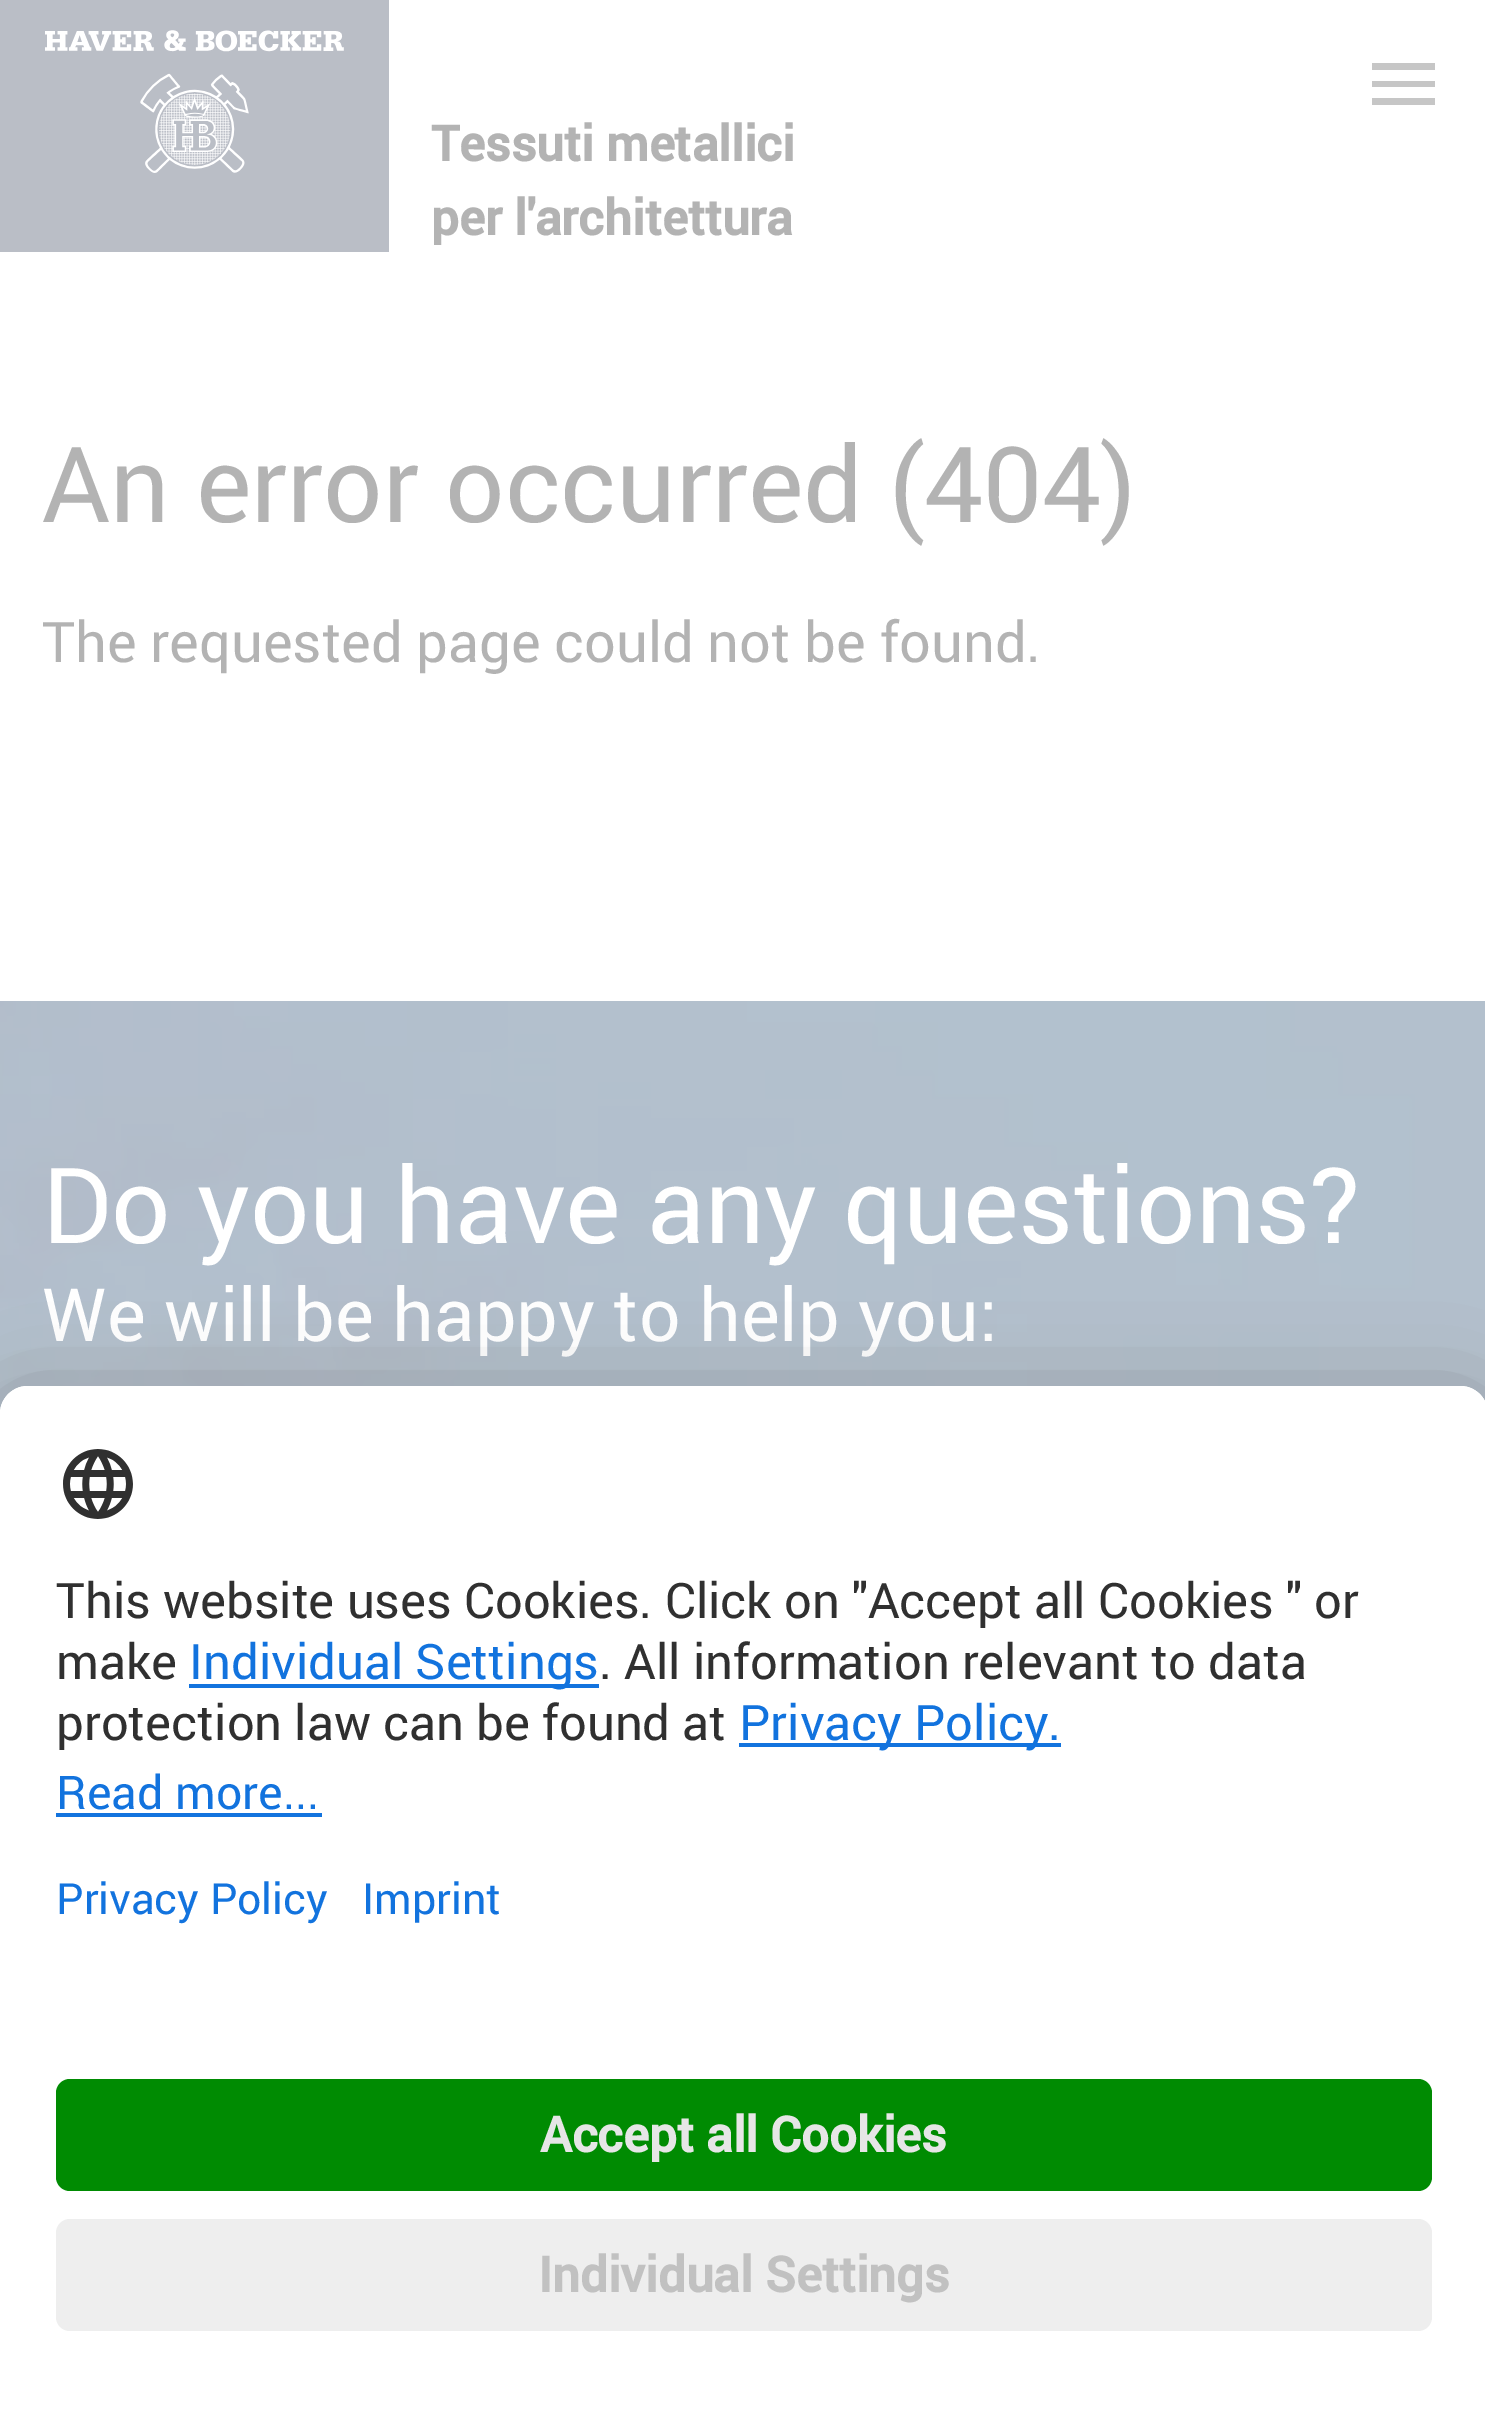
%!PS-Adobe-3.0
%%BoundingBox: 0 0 1485 2427
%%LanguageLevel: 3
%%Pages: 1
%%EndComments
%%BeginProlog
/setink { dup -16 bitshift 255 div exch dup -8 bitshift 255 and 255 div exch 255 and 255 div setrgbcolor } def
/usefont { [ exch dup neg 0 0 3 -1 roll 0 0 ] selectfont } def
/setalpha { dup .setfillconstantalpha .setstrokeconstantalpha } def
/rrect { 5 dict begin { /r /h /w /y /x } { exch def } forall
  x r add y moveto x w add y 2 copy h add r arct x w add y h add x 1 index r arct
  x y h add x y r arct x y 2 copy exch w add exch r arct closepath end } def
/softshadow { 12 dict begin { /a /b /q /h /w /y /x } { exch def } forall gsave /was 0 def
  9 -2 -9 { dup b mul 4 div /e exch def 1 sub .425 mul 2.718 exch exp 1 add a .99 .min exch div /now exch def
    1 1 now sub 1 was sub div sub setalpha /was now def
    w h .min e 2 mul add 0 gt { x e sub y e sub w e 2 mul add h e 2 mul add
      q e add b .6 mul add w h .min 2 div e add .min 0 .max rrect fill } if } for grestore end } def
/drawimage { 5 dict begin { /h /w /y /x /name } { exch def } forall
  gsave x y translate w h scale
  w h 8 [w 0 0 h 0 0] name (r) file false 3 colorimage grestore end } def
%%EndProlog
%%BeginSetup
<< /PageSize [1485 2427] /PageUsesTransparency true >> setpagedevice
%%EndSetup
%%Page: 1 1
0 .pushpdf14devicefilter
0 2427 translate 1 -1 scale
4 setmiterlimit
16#FFFFFF setink
0 0 1485 2427 rectfill
16#BABEC6 setink
0 0 389 252 rectfill
(img1.raw) 45 30 299 143 drawimage
16#C6C6C6 setink
1372 63 moveto 1435 63 lineto 1435 70 lineto 1372 70 lineto closepath 1372 81 moveto 1435 81 lineto 1435 87 lineto 1372 87 lineto closepath 1372 98 moveto 1435 98 lineto 1435 105 lineto 1372 105 lineto closepath fill
/Roboto-Bold 49 usefont
16#B3B3B3 setink
431 161 moveto (Tessuti metallici) show
431 235 moveto (per l'architettura) show
/Roboto-Regular 105 usefont
42 522 moveto (An error occurred \(404\)) show
/Roboto-Regular 56 usefont
42 662 moveto (The requested page could not be found.) show
(img2.raw) 0 1001 1485 413 drawimage
/Roboto-Regular 105 usefont
16#FFFFFF setink
42 1243 moveto (Do you have any questions?) show
/Roboto-Regular 73.5 usefont
42 1341 moveto (We will be happy to help you:) show
16#000000 setink
0 1456 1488 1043 28 49 0.3 softshadow
0 1404 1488 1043 28 45.5 0.22 softshadow
16#FFFFFF setink
28 1386 moveto 1460 1386 lineto 1475.5 1386 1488 1398.5 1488 1414 curveto 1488 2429 lineto 0 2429 lineto 0 1414 lineto 0 1398.5 12.5 1386 28 1386 curveto closepath fill
28 1386 moveto 1460 1386 lineto 1475.5 1386 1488 1398.5 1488 1414 curveto 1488 2037 lineto 0 2037 lineto 0 1414 lineto 0 1398.5 12.5 1386 28 1386 curveto closepath fill
(img3.raw) 63 1449 70 70 drawimage
/Roboto-Regular 49 usefont
16#303030 setink
56 1618 moveto (This website uses Cookies. Click on "Accept all Cookies " or) show
56 1679 moveto (make) show
16#1273DE setink
189 1684 410 4 rectfill
189 1679 moveto (Individual Settings) show
16#303030 setink
599 1679 moveto (. All information relevant to data) show
56 1740 moveto (protection law can be found at) show
16#1273DE setink
739 1743 322 4 rectfill
739 1740 moveto (Privacy Policy.) show
/Roboto-Regular 46.5 usefont
56 1809 moveto (Read more...) show
56 1813 266 4 rectfill
/Roboto-Regular 43 usefont
56 1914 moveto (Privacy Policy) show
362 1914 moveto (Imprint) show
16#008B02 setink
56 2079 1376 112 14 rrect fill
/Roboto-Bold 49 usefont
16#E6E6E6 setink
540 2152 moveto (Accept all Cookies) show
16#EEEEEE setink
56 2219 1376 112 14 rrect fill
16#C1C1C1 setink
538 2292 moveto (Individual Settings) show
.poppdf14devicefilter showpage
%%EOF
